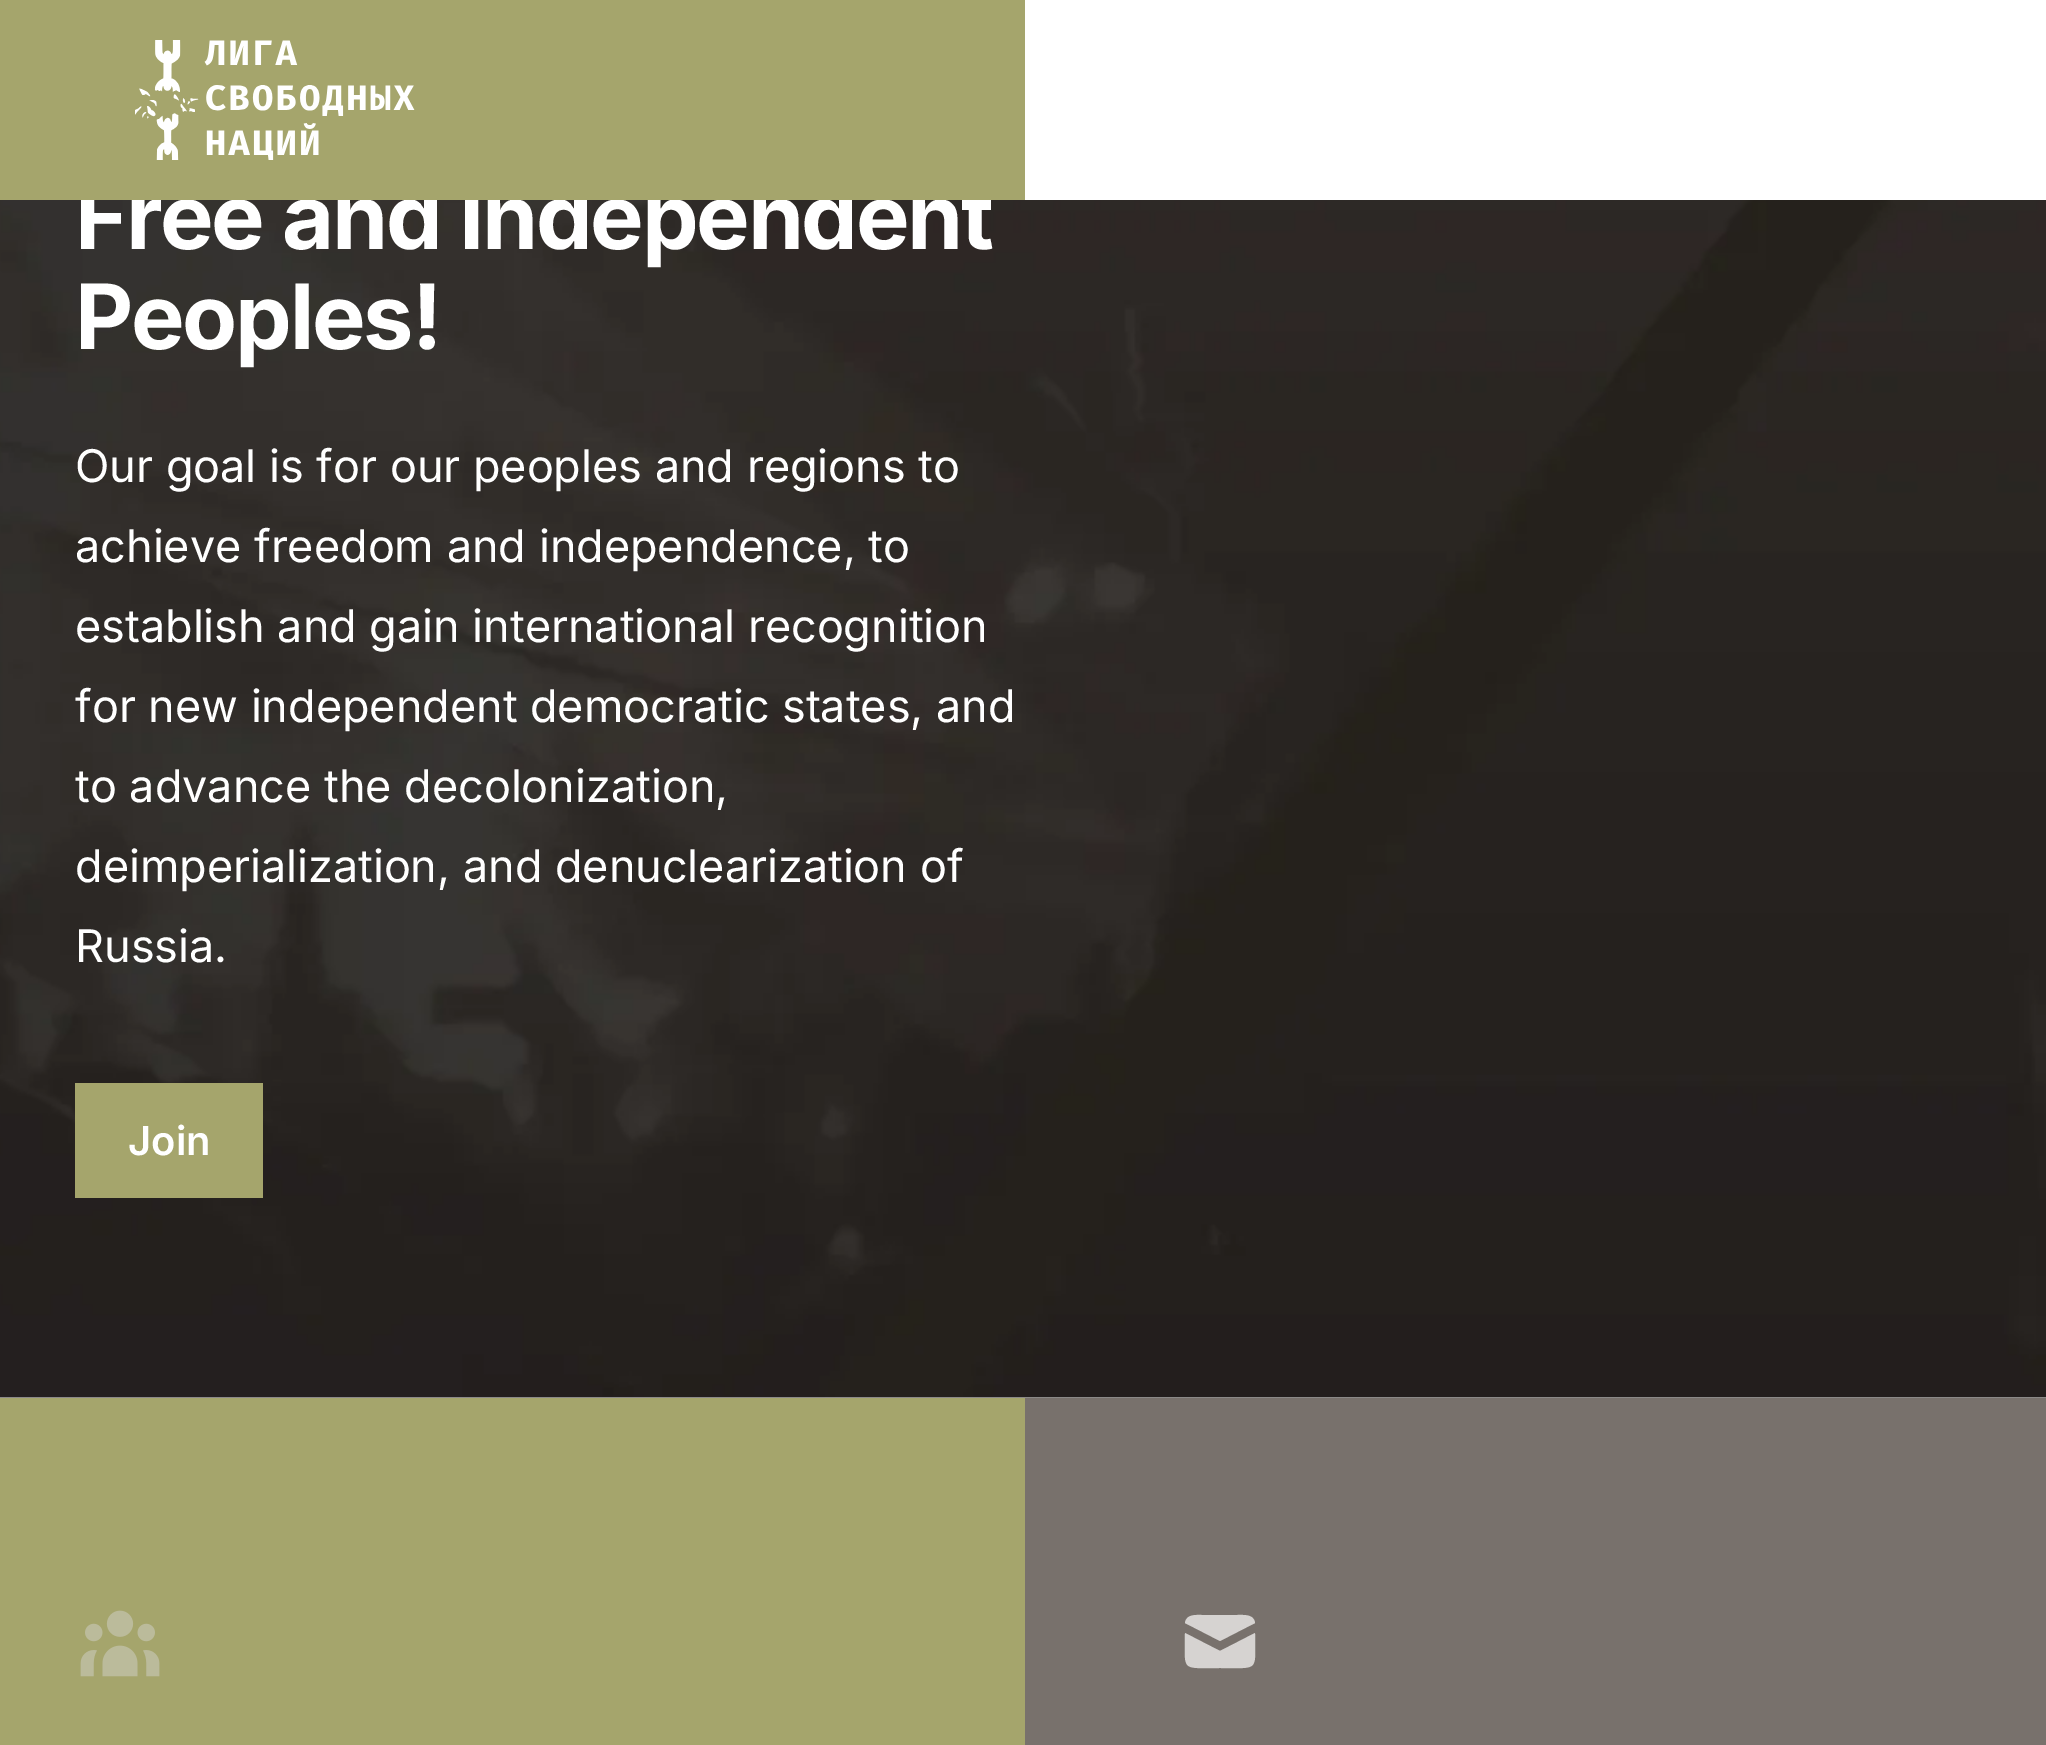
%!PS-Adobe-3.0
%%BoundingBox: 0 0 2046 1745
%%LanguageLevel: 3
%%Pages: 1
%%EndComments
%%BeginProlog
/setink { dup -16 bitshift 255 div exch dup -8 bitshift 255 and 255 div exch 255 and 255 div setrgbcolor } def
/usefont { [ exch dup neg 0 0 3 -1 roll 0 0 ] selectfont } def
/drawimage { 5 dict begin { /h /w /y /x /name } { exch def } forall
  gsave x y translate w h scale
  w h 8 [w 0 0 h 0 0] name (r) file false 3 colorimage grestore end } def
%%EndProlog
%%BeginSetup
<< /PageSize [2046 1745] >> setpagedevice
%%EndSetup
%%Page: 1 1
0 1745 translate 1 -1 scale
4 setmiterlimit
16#F4F4F5 setink
0 0 2046 1745 rectfill
(img2.raw) 0 200 2046 1198 drawimage
/Inter-Bold 90 usefont
16#FFFFFF setink
75 249 moveto -2.25 0 (Free and Independent) ashow
16#A5A56C setink
0 0 1025 200 rectfill
16#FFFFFF setink
1025 0 1021 200 rectfill
(img1.raw) 135 40 280 120 drawimage
75 349 moveto -2.25 0 (Peoples!) ashow
/Inter-Regular 45 usefont
[
    [(Our goal is for our peoples and regions to) 75 482]
    [(achieve freedom and independence, to) 75 562]
    [(establish and gain international recognition) 75 642]
    [(for new independent democratic states, and) 75 722]
    [(to advance the decolonization,) 75 802]
    [(deimperialization, and denuclearization of) 75 882]
    [(Russia.) 75 962]
] { aload pop moveto show } forall
16#A5A56C setink
75 1083 188 115 rectfill
/Inter-SemiBold 40 usefont
16#FFFFFF setink
128 1155 moveto (Join) show
16#A5A56C setink
0 1398 1025 347 rectfill
16#78716C setink
1025 1398 1021 347 rectfill
(img3.raw) 80 1610 80 67 drawimage
16#D6D3D1 setink
1185 1623 moveto 1220 1641 lineto 1255 1623 lineto 1254 1614 1244 1615 1237 1615 curveto 1202 1615 lineto 1196 1615 1186 1614 1185 1623 curveto closepath fill
1255 1633 moveto 1220 1651 lineto 1185 1633 lineto 1185 1672 1180 1668 1220 1668 curveto 1260 1668 1255 1672 1255 1633 curveto closepath fill
showpage
%%EOF
